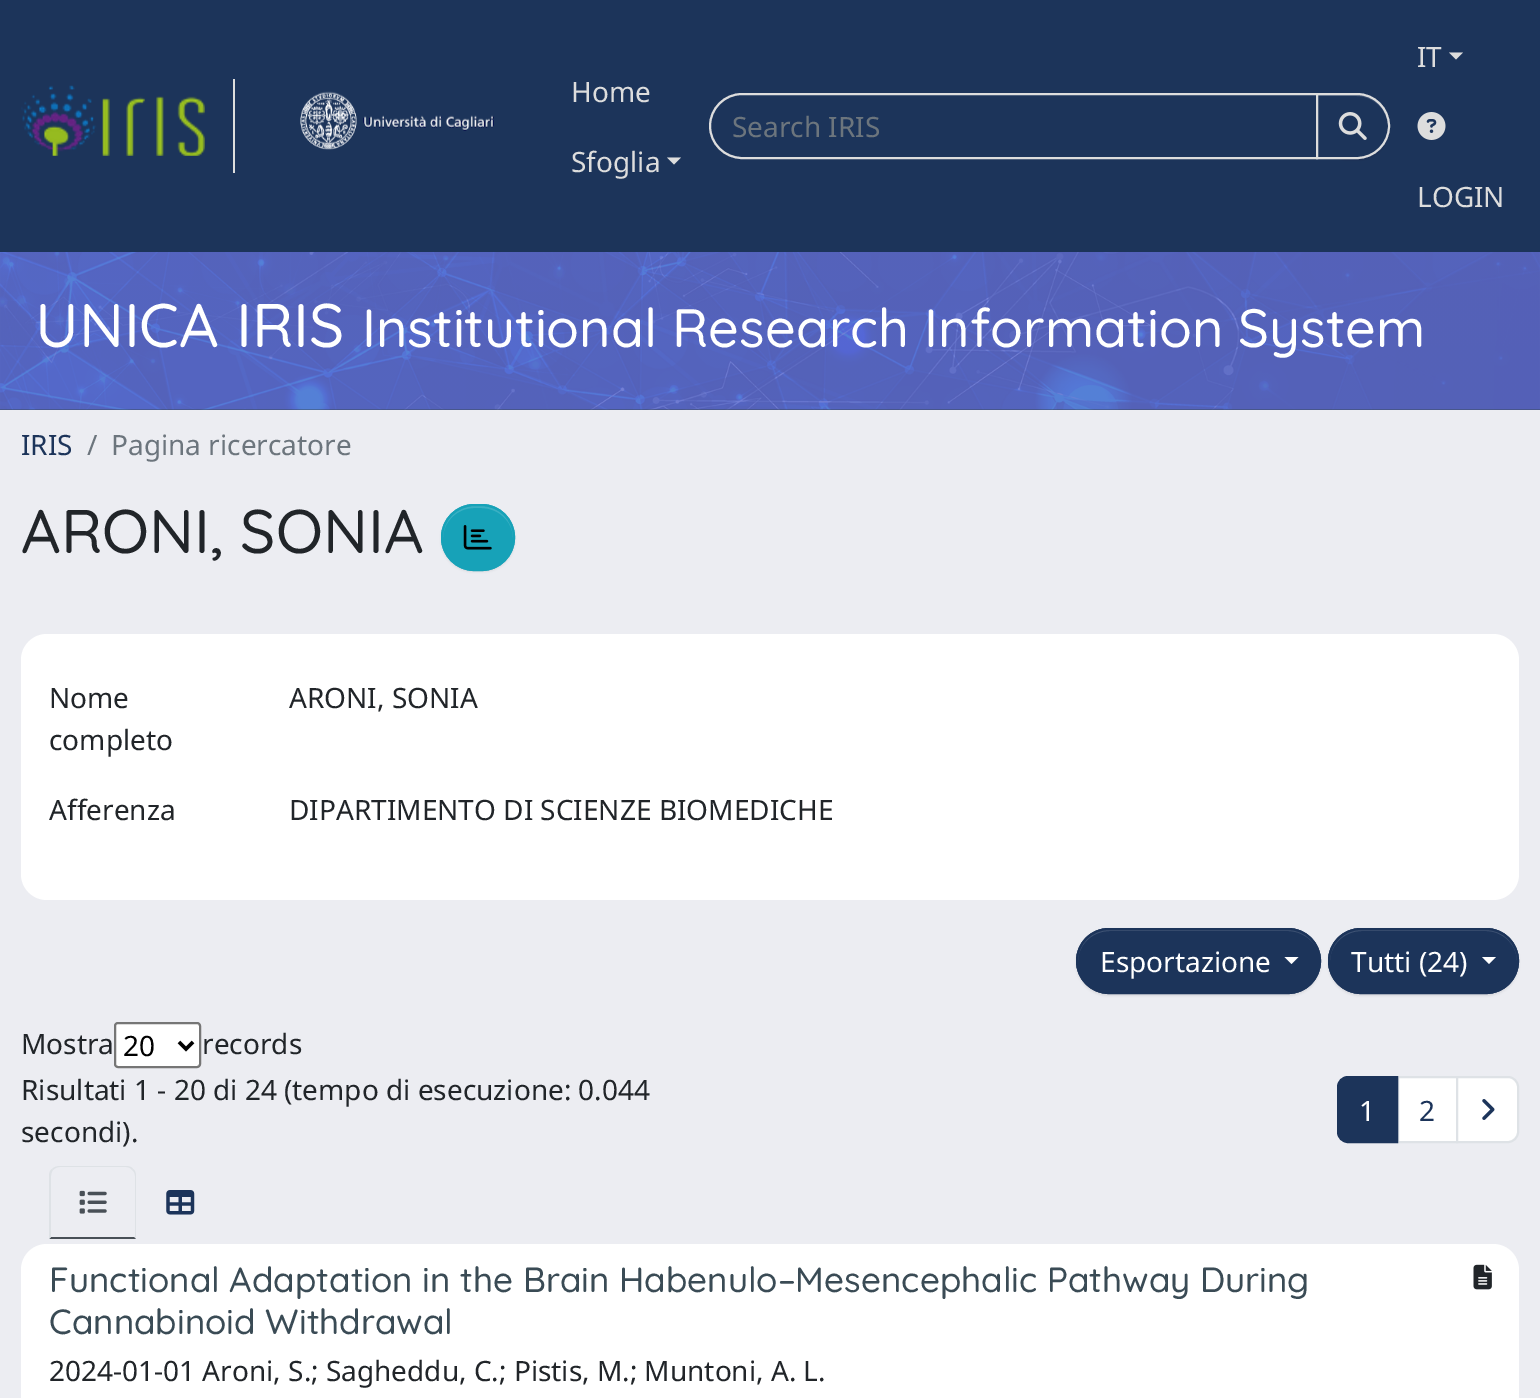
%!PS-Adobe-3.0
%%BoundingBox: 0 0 1540 1398
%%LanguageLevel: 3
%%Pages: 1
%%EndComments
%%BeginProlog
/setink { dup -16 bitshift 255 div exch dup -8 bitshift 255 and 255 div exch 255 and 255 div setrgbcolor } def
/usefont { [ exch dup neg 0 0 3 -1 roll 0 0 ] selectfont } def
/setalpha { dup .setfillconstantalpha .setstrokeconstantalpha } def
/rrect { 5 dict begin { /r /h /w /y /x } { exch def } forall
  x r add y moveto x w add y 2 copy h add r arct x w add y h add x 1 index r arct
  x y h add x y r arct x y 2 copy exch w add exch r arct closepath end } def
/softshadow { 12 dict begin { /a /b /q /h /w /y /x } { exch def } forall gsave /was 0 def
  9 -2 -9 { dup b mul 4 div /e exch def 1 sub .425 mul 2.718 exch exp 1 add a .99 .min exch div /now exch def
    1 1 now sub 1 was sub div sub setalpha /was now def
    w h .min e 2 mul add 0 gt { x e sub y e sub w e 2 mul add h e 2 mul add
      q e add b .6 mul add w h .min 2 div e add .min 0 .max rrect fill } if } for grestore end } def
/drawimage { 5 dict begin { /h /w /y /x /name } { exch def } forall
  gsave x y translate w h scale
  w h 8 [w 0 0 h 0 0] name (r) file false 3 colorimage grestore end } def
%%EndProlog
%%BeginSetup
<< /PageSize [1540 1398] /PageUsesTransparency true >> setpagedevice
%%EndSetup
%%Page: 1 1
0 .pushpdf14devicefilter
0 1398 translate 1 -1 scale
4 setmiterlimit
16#ECEDF2 setink
0 0 1540 1398 rectfill
16#1C345A setink
0 0 1540 252 rectfill
16#DDDDDD setink
233 79 2 94 rectfill
(img1.raw) 21 85 184 71 drawimage
(img2.raw) 300 91 194 59 drawimage
/NotoSans-Regular 28 usefont
571 102 moveto (Home) show
571 172 moveto (Sfoglia) show
667 157.5 moveto 681 157.5 lineto 674 164.5 lineto closepath fill
2 setlinewidth
742 94 moveto 1317 94 lineto 1317 158 lineto 742 158 lineto 724.5 158 710 143.5 710 126 curveto 710 108.5 724.5 94 742 94 curveto closepath stroke
16#6C757D setink
732 137 moveto (Search IRIS) show
16#000000 setink
1316 95 74 66 33 1 0.07 softshadow
16#1C345A setink
1316 93 moveto 1357 93 lineto 1375 93 1390 108 1390 126 curveto 1390 144 1375 159 1357 159 curveto 1316 159 lineto closepath fill
16#3E5273 setink
1318 96 moveto 1356 96 lineto 1374 96 1388 110 1388 127 curveto 1388 126 lineto 1388 109 1374 95 1356 95 curveto 1318 95 lineto closepath fill
16#DDDDDD setink
1317 94 moveto 1357 94 lineto 1374.5 94 1389 108.5 1389 126 curveto 1389 143.5 1374.5 158 1357 158 curveto 1317 158 lineto closepath stroke
(img3.raw) 1338 112 29 28 drawimage
1417 67 moveto (IT) show
1449 52.5 moveto 1463 52.5 lineto 1456 59.5 lineto closepath fill
(img4.raw) 1417 112 29 28 drawimage
1417 207 moveto (LOGIN) show
16#3A4B55 setink
0 252 1540 158 rectfill
(img5.raw) 0 252 1540 158 drawimage
/Quicksand-Medium 61.5 usefont
16#FFFFFF setink
35 347 moveto (UNICA IRIS) show
/Quicksand-Medium 53.9 usefont
362 347 moveto (Institutional Research Information System) show
/NotoSans-Regular 28 usefont
16#1C345A setink
21 455 moveto (IRIS) show
16#6C757D setink
87 455 moveto (/) show
111 455 moveto (Pagina ricercatore) show
/Quicksand-Medium 61.5 usefont
16#212529 setink
21 553 moveto (ARONI, SONIA) show
16#000000 setink
441 506 74 66 33 1 0.07 softshadow
16#17A2B8 setink
441 504 74 67 33.5 rrect fill
16#3AB0C3 setink
474 508 moveto 481 508 lineto 499 508 513 522 513 538 curveto 514 495 442 495 443 538 curveto 443 522 457 508 474 508 curveto closepath fill
16#17A2B8 setink
442 505 72 65 32.5 rrect stroke
(img6.raw) 463 525 29 25 drawimage
16#FFFFFF setink
21 634 1498 266 26 rrect fill
/NotoSans-Regular 28 usefont
16#212529 setink
[
    [(Nome) 49 708]
    [(completo) 49 750]
    [(ARONI, SONIA) 289 708]
    [(Afferenza) 49 820]
    [(DIPARTIMENTO DI SCIENZE BIOMEDICHE) 289 820]
] { aload pop moveto show } forall
16#000000 setink
1076 929 245 67 33.5 1 0.07 softshadow
16#1C345A setink
1076 928 245 66 33 rrect fill
16#3E5273 setink
1110 931 moveto 1288 931 lineto 1305 931 1320 945 1320 961 curveto 1320 960 lineto 1320 943 1306 929 1288 929 curveto 1110 929 lineto 1092 929 1078 943 1078 960 curveto 1078 961 lineto 1078 945 1092 931 1110 931 curveto closepath fill
16#1C345A setink
1077 929 243 64 32 rrect stroke
16#FFFFFF setink
1100 972 moveto (Esportazione) show
1284.5 957 moveto 1298.5 957 lineto 1291.5 964 lineto closepath fill
16#000000 setink
1328 929 191 67 33.5 1 0.07 softshadow
16#1C345A setink
1328 928 191 66 33 rrect fill
16#3E5273 setink
1362 931 moveto 1486 931 lineto 1503 931 1517 945 1517 961 curveto 1517 960 lineto 1517 943 1503 929 1486 929 curveto 1362 929 lineto 1344 929 1330 943 1330 960 curveto 1330 961 lineto 1330 945 1344 931 1362 931 curveto closepath fill
16#1C345A setink
1329 929 189 64 32 rrect stroke
16#FFFFFF setink
1351 972 moveto (Tutti \(24\)) show
1482 957 moveto 1496 957 lineto 1489 964 lineto closepath fill
16#212529 setink
21 1054 moveto (Mostra) show
16#FFFFFF setink
115 1023 85 44 3 rrect gsave fill grestore
16#767676 setink
stroke
16#000000 setink
3.5 setlinewidth
179 1042 moveto 186 1049 lineto 193 1042 lineto stroke
123 1056 moveto (20) show
16#212529 setink
[
    [(records) 202 1054]
    [(Risultati 1 - 20 di 24 \(tempo di esecuzione: 0.044) 21 1100]
    [(secondi\).) 21 1142]
] { aload pop moveto show } forall
16#FFFFFF setink
1398 1077 moveto 1457 1077 lineto 1457 1142 lineto 1398 1142 lineto closepath gsave fill grestore
16#DEE2E6 setink
2 setlinewidth
stroke
16#1C345A setink
1348 1077 moveto 1397 1077 lineto 1397 1142 lineto 1348 1142 lineto 1342.5 1142 1338 1137.5 1338 1132 curveto 1338 1087 lineto 1338 1081.5 1342.5 1077 1348 1077 curveto closepath gsave fill grestore
stroke
16#FFFFFF setink
1359 1121 moveto (1) show
16#1C345A setink
1419 1121 moveto (2) show
16#FFFFFF setink
1457 1077 moveto 1508 1077 lineto 1513.5 1077 1518 1081.5 1518 1087 curveto 1518 1132 lineto 1518 1137.5 1513.5 1142 1508 1142 curveto 1457 1142 lineto closepath gsave fill grestore
16#DEE2E6 setink
stroke
(img7.raw) 1482 1099 13 21 drawimage
60 1166 moveto 57 1166 54 1167 52 1169 curveto 53 1170 lineto 55 1168 57 1167 60 1167 curveto 126 1167 lineto 128 1167 131 1168 132 1170 curveto 133 1169 lineto 132 1167 129 1166 126 1166 curveto closepath fill
136 1238 moveto 136 1176 lineto 136 1173 135 1170 133 1169 curveto 132 1170 lineto 134 1171 135 1174 135 1176 curveto 135 1237 lineto 134 1237 lineto closepath fill
16#495057 setink
136 1239 moveto 134 1237 lineto 51 1237 lineto 49 1239 lineto closepath fill
16#DEE2E6 setink
49 1239 moveto 51 1237 lineto 51 1176 lineto 51 1174 52 1171 53 1170 curveto 52 1169 lineto 50 1170 49 1173 49 1176 curveto closepath fill
(img8.raw) 79 1190 28 24 drawimage
(img9.raw) 166 1190 29 25 drawimage
16#FFFFFF setink
47 1244 moveto 1493 1244 lineto 1507.5 1244 1519 1255.5 1519 1270 curveto 1519 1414 lineto 21 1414 lineto 21 1270 lineto 21 1255.5 32.5 1244 47 1244 curveto closepath fill
/Quicksand-Medium 35 usefont
16#3A4B55 setink
49 1292 moveto (Functional Adaptation in the Brain Habenulo–Mesencephalic Pathway During) show
49 1334 moveto (Cannabinoid Withdrawal) show
(img10.raw) 1473 1264 19 26 drawimage
/NotoSans-Regular 28 usefont
16#212529 setink
49 1381 moveto (2024-01-01 Aroni, S.; Sagheddu, C.; Pistis, M.; Muntoni, A. L.) show
.poppdf14devicefilter showpage
%%EOF
